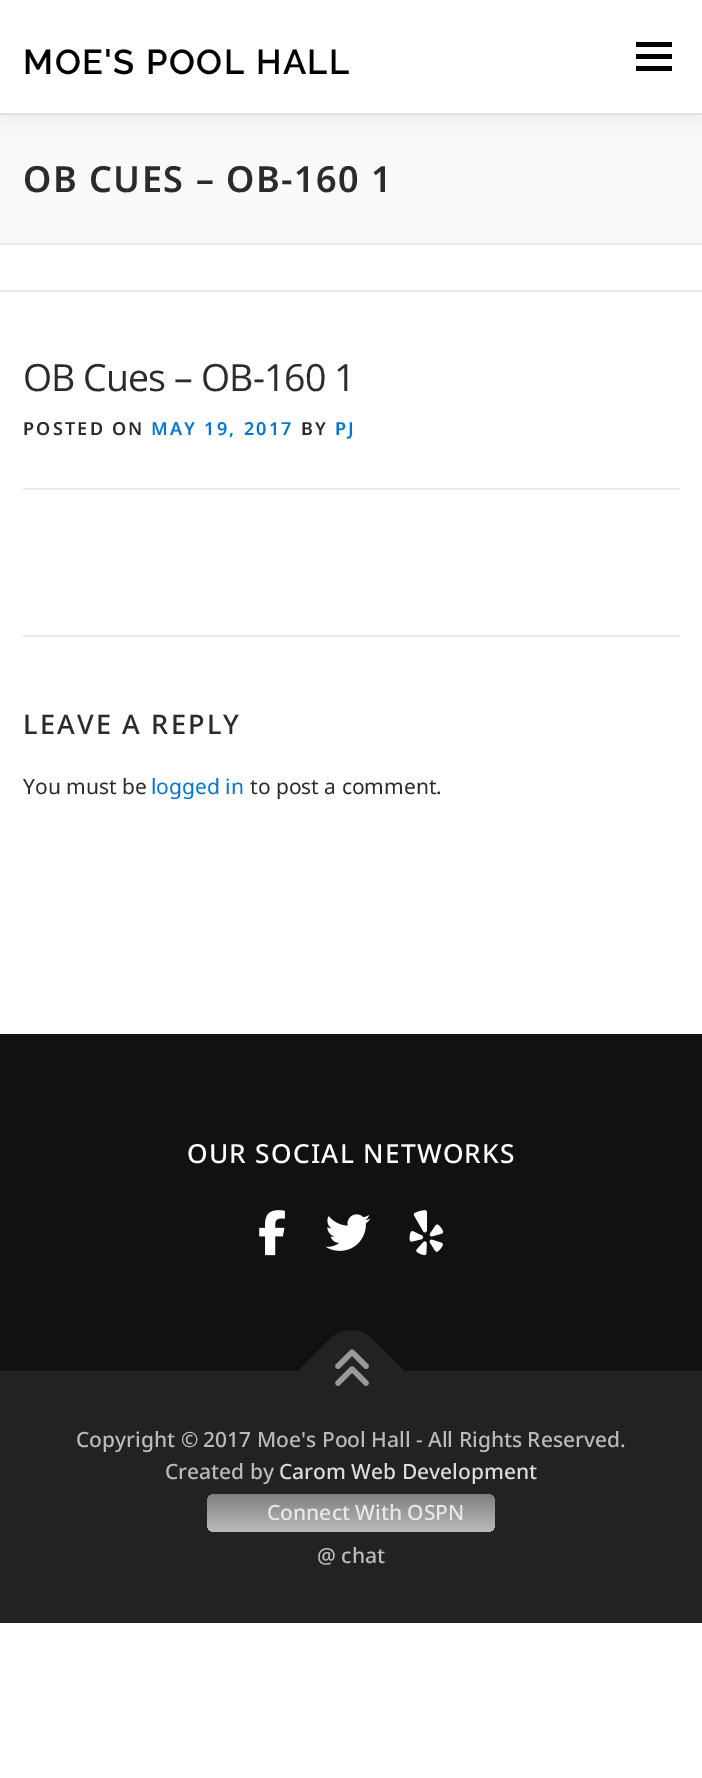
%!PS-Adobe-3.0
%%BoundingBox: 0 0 702 1778
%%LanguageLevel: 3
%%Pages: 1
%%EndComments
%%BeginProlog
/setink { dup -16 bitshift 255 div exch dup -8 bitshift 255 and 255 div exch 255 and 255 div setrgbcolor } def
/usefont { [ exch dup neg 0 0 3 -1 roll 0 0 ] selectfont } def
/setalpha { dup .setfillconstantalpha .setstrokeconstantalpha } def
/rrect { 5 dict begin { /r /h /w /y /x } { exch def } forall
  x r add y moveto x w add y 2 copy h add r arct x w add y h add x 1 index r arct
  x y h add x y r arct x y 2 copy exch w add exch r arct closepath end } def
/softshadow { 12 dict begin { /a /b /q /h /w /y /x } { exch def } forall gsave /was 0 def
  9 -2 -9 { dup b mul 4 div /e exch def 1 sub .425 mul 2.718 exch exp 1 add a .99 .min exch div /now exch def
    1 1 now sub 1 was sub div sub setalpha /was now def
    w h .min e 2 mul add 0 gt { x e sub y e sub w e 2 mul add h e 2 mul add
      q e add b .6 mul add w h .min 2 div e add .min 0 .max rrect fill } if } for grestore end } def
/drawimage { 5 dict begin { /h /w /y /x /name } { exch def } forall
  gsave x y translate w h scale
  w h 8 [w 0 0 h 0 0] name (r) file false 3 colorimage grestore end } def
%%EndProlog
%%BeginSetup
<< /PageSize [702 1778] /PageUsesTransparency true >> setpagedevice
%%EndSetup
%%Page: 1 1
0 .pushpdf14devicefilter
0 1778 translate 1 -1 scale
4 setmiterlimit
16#FFFFFF setink
0 0 702 1778 rectfill
16#F8F9F9 setink
0 115 702 128 rectfill
16#E9E9E9 setink
0 113 702 2 rectfill
16#323232 setink
0 8 702 112 0 7.5 0.06 softshadow
16#FFFFFF setink
0 2 702 111 rectfill
/Raleway-SemiBold 34.5 usefont
16#000000 setink
23 74 moveto 1.5 0 (MOE'S POOL HALL) ashow
[
    [636 54 36 5 16#000000]
    [636 42 36 5 16#000000]
    [636 66 36 5 16#000000]
    [0 243 702 2 16#E9E9E9]
] { aload pop setink rectfill } forall
/NotoSans-SemiBold 36 usefont
16#292B2C setink
23 192 moveto 1.5 0 (OB CUES – OB-160 1) ashow
16#E9E9E9 setink
0 290 702 2 rectfill
/OpenSans-Regular 37.5 usefont
16#292B2C setink
23 391 moveto -0.9 0 (OB Cues – OB-160 1) ashow
16#E9E9E9 setink
23 488 657 2 rectfill
/NotoSans-SemiBold 18 usefont
16#292B2C setink
23 435 moveto 2.25 0 (POSTED ON) ashow
16#0275D8 setink
151 435 moveto 2.25 0 (MAY 19, 2017) ashow
16#292B2C setink
301 435 moveto 2.25 0 (BY) ashow
16#0275D8 setink
335 435 moveto 2.25 0 (PJ) ashow
16#E9E9E9 setink
23 635 657 2 rectfill
/NotoSans-Medium 27 usefont
16#292B2C setink
23 734 moveto 2.25 0 (LEAVE A REPLY) ashow
/NotoSans-Regular 21 usefont
23 794 moveto (You must be) show
16#0275D8 setink
151 794 moveto (logged in) show
16#292B2C setink
250 794 moveto (to post a comment.) show
16#111111 setink
0 1034 702 337 rectfill
/NotoSans-Medium 26.25 usefont
16#FFFFFF setink
187 1163 moveto 1.25 0 (OUR SOCIAL NETWORKS) ashow
(img1.raw) 259 1210 26 46 drawimage
(img2.raw) 325 1214 46 37 drawimage
(img3.raw) 409 1210 35 46 drawimage
16#222222 setink
0 1371 702 252 rectfill
298 1371 moveto 330 1339 lineto 342 1327 360 1327 372 1339 curveto 404 1371 lineto 351 1424 lineto closepath fill
(img4.raw) 335 1349 34 37 drawimage
/NotoSans-Medium 21 usefont
16#BBBBBB setink
76 1447 moveto (Copyright © 2017 Moe's Pool Hall - All Rights Reserved.) show
165 1479 moveto (Created by) show
16#DDDDDD setink
279 1479 moveto (Carom Web Development) show
gsave 207 1494 288 38 8 rrect clip newpath
<< /ShadingType 2 /ColorSpace /DeviceRGB /Coords [351 1494 351 1532] /Extend [true true] /Function << /FunctionType 2 /Domain [0 1] /C0 [0.498 0.498 0.498] /C1 [0.733 0.733 0.733] /N 1 >> >> shfill grestore
16#E9E9E9 setink
267 1520 moveto (Connect With OSPN) show
16#BBBBBB setink
317 1563 moveto (@ chat) show
.poppdf14devicefilter showpage
%%EOF
